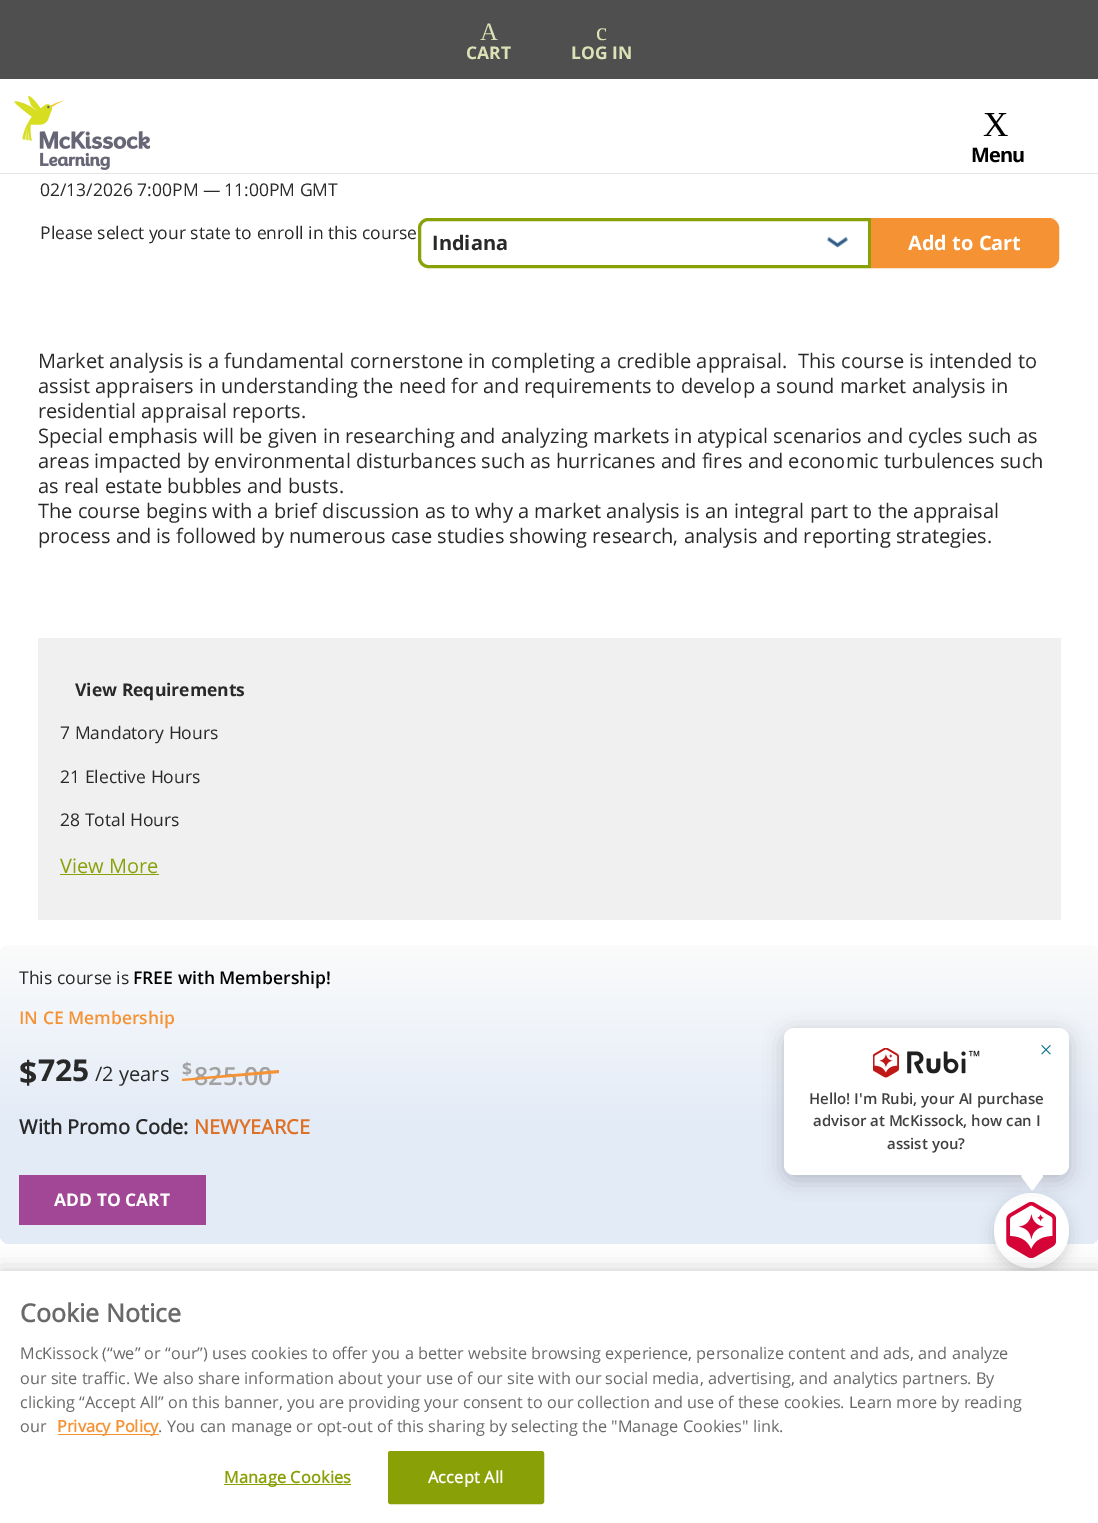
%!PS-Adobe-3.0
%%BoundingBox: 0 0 1098 1523
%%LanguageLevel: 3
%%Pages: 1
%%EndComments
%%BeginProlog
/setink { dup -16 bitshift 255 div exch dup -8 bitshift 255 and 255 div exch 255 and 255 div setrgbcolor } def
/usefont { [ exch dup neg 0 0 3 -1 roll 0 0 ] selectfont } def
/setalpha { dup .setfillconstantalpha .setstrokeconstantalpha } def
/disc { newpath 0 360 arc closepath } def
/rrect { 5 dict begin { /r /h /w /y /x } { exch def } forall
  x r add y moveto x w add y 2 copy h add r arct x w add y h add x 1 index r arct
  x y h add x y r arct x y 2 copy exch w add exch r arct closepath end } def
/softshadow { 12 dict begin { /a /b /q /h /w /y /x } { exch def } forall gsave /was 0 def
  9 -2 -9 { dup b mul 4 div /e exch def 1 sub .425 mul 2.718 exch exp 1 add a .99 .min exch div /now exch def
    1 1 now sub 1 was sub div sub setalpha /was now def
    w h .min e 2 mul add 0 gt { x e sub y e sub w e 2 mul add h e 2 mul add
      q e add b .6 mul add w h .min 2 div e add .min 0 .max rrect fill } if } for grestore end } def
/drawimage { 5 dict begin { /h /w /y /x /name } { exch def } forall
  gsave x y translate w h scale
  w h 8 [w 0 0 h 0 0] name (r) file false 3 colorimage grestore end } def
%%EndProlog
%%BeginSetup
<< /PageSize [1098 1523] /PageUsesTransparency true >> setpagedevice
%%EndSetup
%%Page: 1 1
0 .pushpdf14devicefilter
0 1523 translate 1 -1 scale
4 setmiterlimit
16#FFFFFF setink
0 0 1098 1523 rectfill
16#E6E6E6 setink
0 173 1098 1 rectfill
16#4F4F4F setink
0 0 1098 79 rectfill
/LiberationSerif-Regular 25 usefont
16#DCE2B5 setink
480 40 moveto (A) show
/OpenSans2-Bold 17.5 usefont
466 59 moveto (CART) show
/LiberationSerif-Regular 25 usefont
596 40 moveto (c) show
/OpenSans2-Bold 17.5 usefont
571 59 moveto (LOG IN) show
(img1.raw) 14 95 137 75 drawimage
/LiberationSerif-Regular 35 usefont
16#000000 setink
983 136 moveto -1 0 (X) ashow
/OpenSans2-Bold 20 usefont
971 162 moveto -1 0 (Menu) ashow
/OpenSans-Regular 17.5 usefont
16#292929 setink
[
    [(02/13/2026 7:00PM —) 40 196]
    [(11:00PM GMT) 224 196]
    [(Please select your state to enroll in this course) 40 239]
] { aload pop moveto show } forall
(img2.raw) 827 236 21 12 drawimage
16#8AA007 setink
3 setlinewidth
428 219.5 moveto 869.5 219.5 lineto 869.5 266.5 lineto 428 266.5 lineto 423.5 266.5 419.5 262.5 419.5 258 curveto 419.5 228 lineto 419.5 223.5 423.5 219.5 428 219.5 curveto closepath stroke
/OpenSans2-Bold 20 usefont
16#292929 setink
432 250 moveto (Indiana) show
16#F59233 setink
872.5 219.5 moveto 1049 219.5 lineto 1053.5 219.5 1057.5 223.5 1057.5 228 curveto 1057.5 258 lineto 1057.5 262.5 1053.5 266.5 1049 266.5 curveto 872.5 266.5 lineto closepath gsave fill grestore
stroke
16#FFFFFF setink
908 250 moveto (Add to Cart) show
/OpenSans-Regular 20 usefont
16#292929 setink
[
    [(Market analysis is a fundamental cornerstone in completing a credible appraisal.  This course is intended to) 38 368]
    [(assist appraisers in understanding the need for and requirements to develop a sound market analysis in) 38 393]
    [(residential appraisal reports.) 38 418]
    [(Special emphasis will be given in researching and analyzing markets in atypical scenarios and cycles such as) 38 443]
    [(areas impacted by environmental disturbances such as hurricanes and fires and economic turbulences such) 38 468]
    [(as real estate bubbles and busts.) 38 493]
    [(The course begins with a brief discussion as to why a market analysis is an integral part to the appraisal) 38 518]
    [(process and is followed by numerous case studies showing research, analysis and reporting strategies.) 38 543]
] { aload pop moveto show } forall
16#F0F0F0 setink
38 638 1023 282 rectfill
/OpenSans2-Bold 17.5 usefont
16#292929 setink
75 696 moveto (View Requirements) show
/OpenSans-Regular 17.5 usefont
[
    [(7 Mandatory Hours) 60 739]
    [(21 Elective Hours) 60 783]
    [(28 Total Hours) 60 826]
] { aload pop moveto show } forall
/OpenSans-Regular 20 usefont
16#8AA007 setink
60 873 moveto (View More) show
60 874 99 1 rectfill
gsave 0 945 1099 299 10 rrect clip newpath
<< /ShadingType 2 /ColorSpace /DeviceRGB /Coords [549 1244 549 945] /Extend [true true] /Function << /FunctionType 3 /Domain [0 1] /Functions [<< /FunctionType 2 /Domain [0 1] /C0 [0.89 0.922 0.969] /C1 [0.89 0.922 0.969] /N 1 >> << /FunctionType 2 /Domain [0 1] /C0 [0.89 0.922 0.969] /C1 [0.984 0.984 0.984] /N 1 >>] /Bounds [0.4] /Encode [0 1 0 1] >> >> shfill grestore
/OpenSans-Regular 17.5 usefont
16#292929 setink
19 984 moveto (This course is) show
/OpenSans-SemiBold 17.5 usefont
16#000000 setink
133 984 moveto (FREE with Membership!) show
16#F59233 setink
19 1024 moveto (IN CE Membership) show
/OpenSans2-Bold 32 usefont
16#292929 setink
19 1084 moveto ($) show
/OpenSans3-Bold 30 usefont
38 1081 moveto (725) show
/OpenSans-Regular 20 usefont
95 1081 moveto (/2 years) show
/OpenSans2-Bold 17.5 usefont
16#A2A2A2 setink
182 1075 moveto ($) show
/OpenSans-SemiBold 25 usefont
194 1085 moveto (825.00) show
16#F59233 setink
182 1079 moveto 279 1070 lineto 279 1073 lineto 182 1081 lineto closepath fill
/OpenSans-Bold 20 usefont
16#292929 setink
19 1134 moveto (With Promo Code:) show
16#DE7125 setink
194 1134 moveto (NEWYEARCE) show
16#A24796 setink
19 1175 187 50 rectfill
/OpenSans2-Bold 17.5 usefont
16#FFFFFF setink
54 1206 moveto (ADD TO CART) show
16#000000 setink
994 1198 75 75 37.5 7.5 0.15 softshadow
16#FFFFFF setink
1031.5 1230.5 37.5 disc fill
(img6.raw) 1006 1202 50 56 drawimage
16#000000 setink
784 1033 285 147 10 10 0.2 softshadow
16#FFFFFF setink
784 1028 285 147 10 rrect fill
(img3.raw) 873 1048 107 30 drawimage
(img4.raw) 1041 1045 10 10 drawimage
/OpenSans2-SemiBold 15 usefont
16#404040 setink
[
    [(Hello! I'm Rubi, your AI purchase) 809 1104]
    [(advisor at McKissock, how can I) 813 1126]
    [(assist you?) 887 1149]
] { aload pop moveto show } forall
(img5.raw) 1021 1175 22 16 drawimage
16#000000 setink
0 1271 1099 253 0 11 0.2 softshadow
16#FFFFFF setink
0 1271 1098 252 rectfill
/OpenSans-Bold 25 usefont
16#696969 setink
20 1322 moveto (Cookie Notice) show
/OpenSans-Regular 16.25 usefont
[
    [(McKissock \(“we” or “our”\) uses cookies to offer you a better website browsing experience, personalize content and ads, and analyze) 20 1359]
    [(our site traffic. We also share information about your use of our site with our social media, advertising, and analytics partners. By) 20 1384]
    [(clicking “Accept All” on this banner, you are providing your consent to our collection and use of these cookies. Learn more by reading) 20 1408]
    [(our) 20 1432]
] { aload pop moveto show } forall
16#F59233 setink
58 1434 101 1 rectfill
/OpenSans-Bold 16.25 usefont
57 1432 moveto (Privacy Policy) show
/OpenSans-Regular 16.25 usefont
16#696969 setink
158 1432 moveto (. You can manage or opt-out of this sharing by selecting the "Manage Cookies" link.) show
16#8AA007 setink
224 1484 127 1 rectfill
/OpenSans-Bold 16.25 usefont
224 1483 moveto 0.2 0 (Manage Cookies) ashow
388.5 1451.5 155 52 2 rrect gsave fill grestore
1 setlinewidth
stroke
16#FFFFFF setink
428 1483 moveto 0.2 0 (Accept All) ashow
.poppdf14devicefilter showpage
%%EOF
